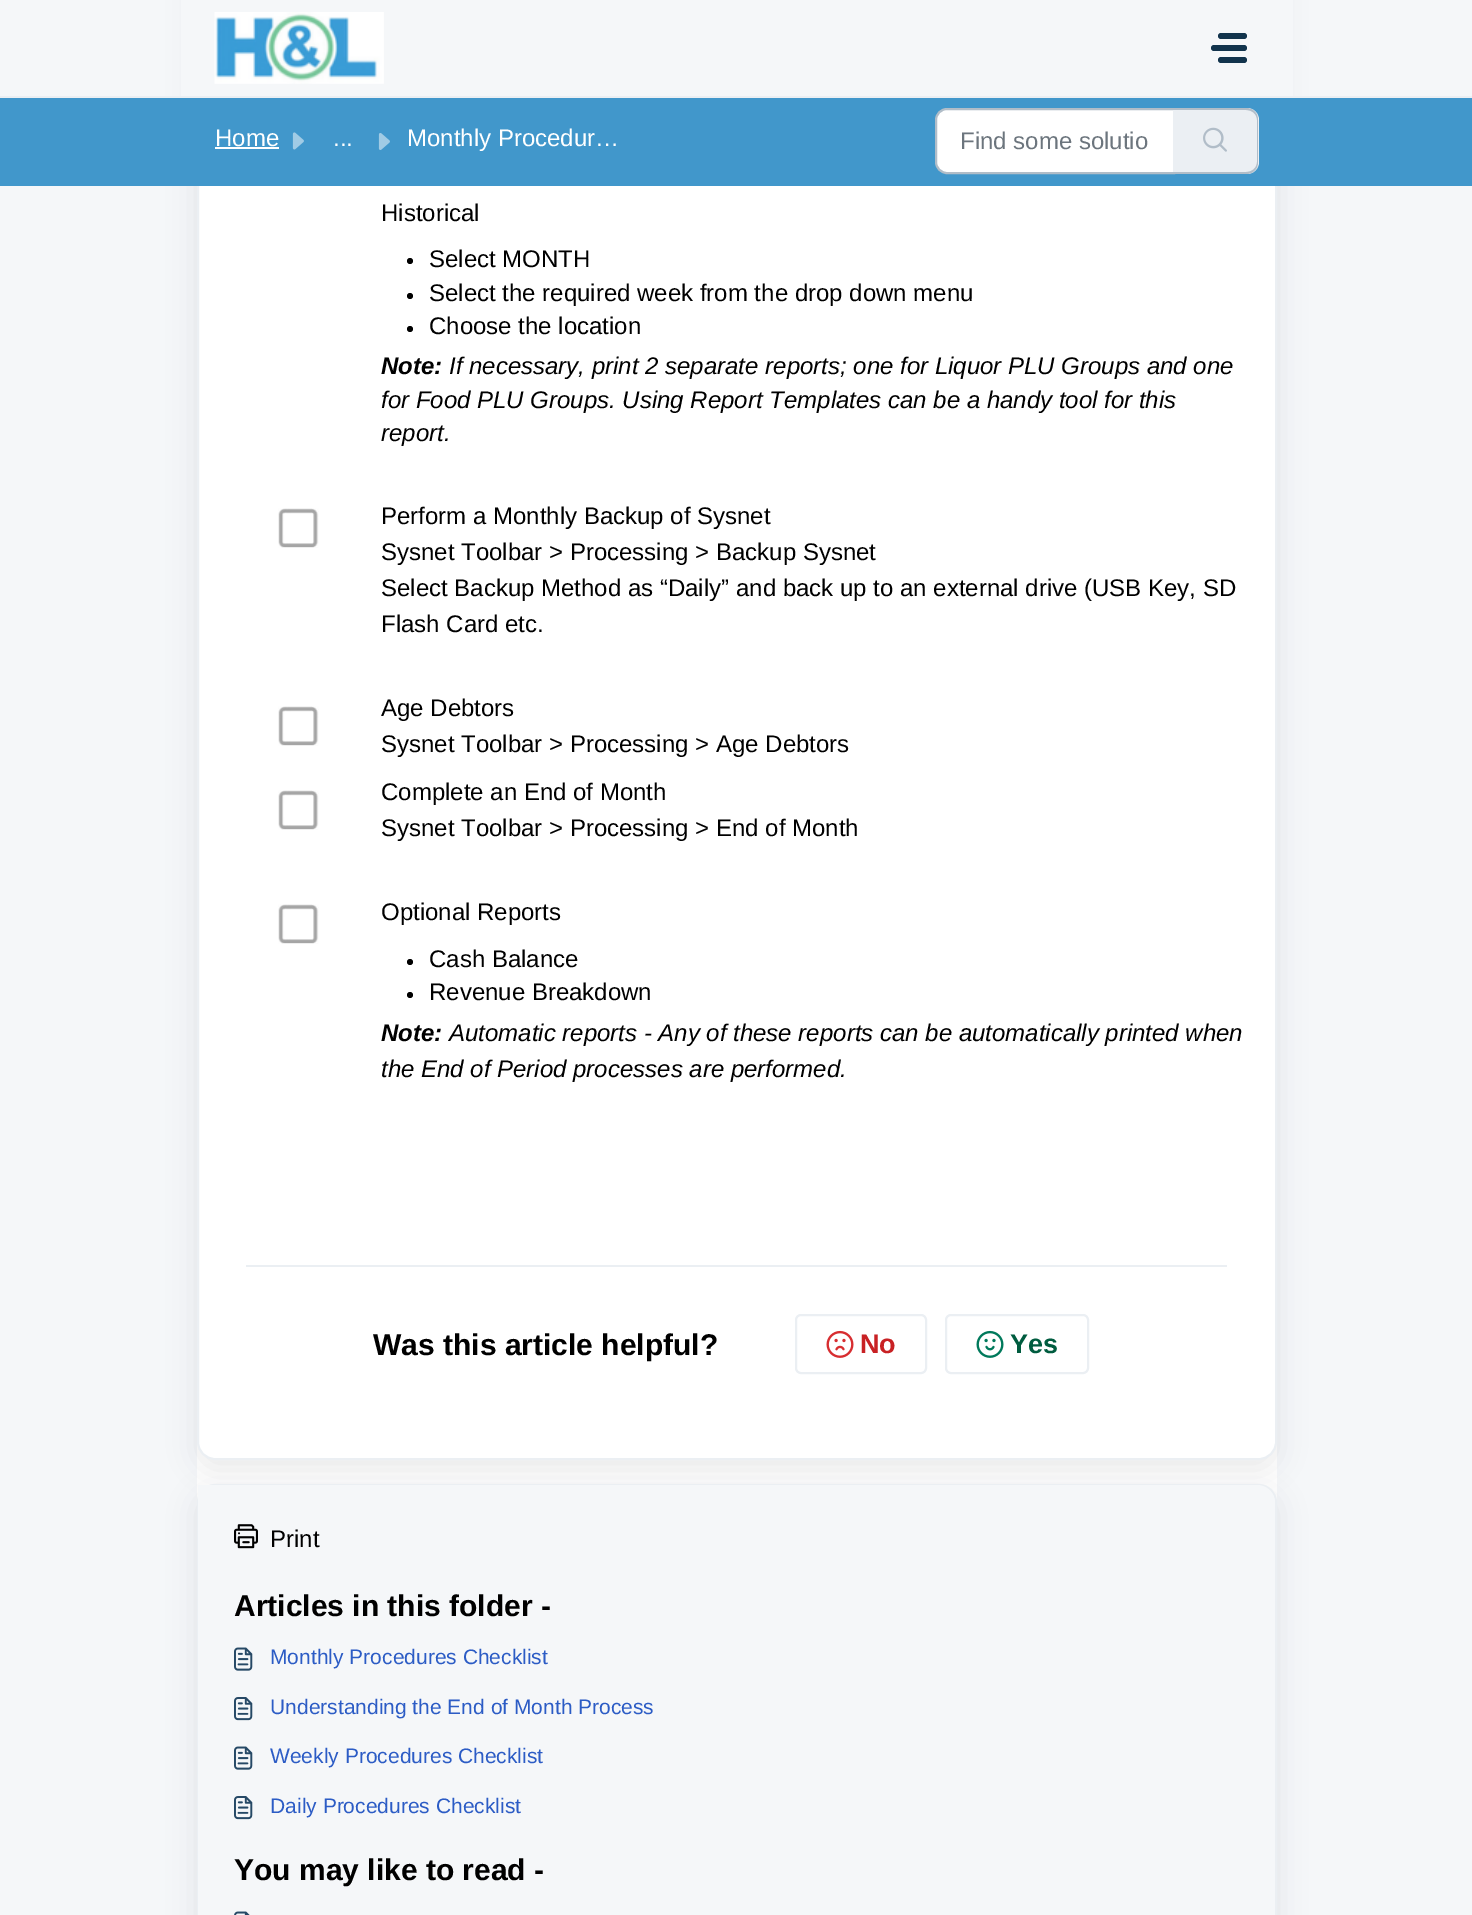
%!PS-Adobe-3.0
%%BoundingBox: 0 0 1472 1915
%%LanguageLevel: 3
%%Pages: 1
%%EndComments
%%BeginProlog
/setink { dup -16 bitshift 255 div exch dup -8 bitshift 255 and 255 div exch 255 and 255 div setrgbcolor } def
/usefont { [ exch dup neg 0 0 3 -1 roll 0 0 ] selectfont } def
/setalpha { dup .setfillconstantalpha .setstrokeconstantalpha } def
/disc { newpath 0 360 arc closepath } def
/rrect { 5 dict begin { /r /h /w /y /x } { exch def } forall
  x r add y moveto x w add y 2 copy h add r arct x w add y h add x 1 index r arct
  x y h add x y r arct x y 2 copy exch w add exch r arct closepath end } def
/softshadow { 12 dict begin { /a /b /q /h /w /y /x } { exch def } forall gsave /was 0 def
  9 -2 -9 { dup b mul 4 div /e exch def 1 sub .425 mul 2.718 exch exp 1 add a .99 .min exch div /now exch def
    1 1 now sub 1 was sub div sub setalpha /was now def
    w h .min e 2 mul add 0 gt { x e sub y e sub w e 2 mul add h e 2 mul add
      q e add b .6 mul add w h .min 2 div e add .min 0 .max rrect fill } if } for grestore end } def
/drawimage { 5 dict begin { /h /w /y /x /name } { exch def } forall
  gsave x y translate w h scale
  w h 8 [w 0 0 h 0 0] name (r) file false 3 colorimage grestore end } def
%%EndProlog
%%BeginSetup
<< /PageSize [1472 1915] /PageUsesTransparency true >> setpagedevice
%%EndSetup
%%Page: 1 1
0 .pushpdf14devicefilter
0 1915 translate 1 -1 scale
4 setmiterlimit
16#F5F7F9 setink
0 0 1472 1915 rectfill
16#FFFFFF setink
197 186 1080 1317 rectfill
gsave
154 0 moveto 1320 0 lineto 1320 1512 lineto 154 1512 lineto closepath 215 -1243 moveto 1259 -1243 lineto 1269 -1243 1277 -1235 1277 -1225 curveto 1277 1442 lineto 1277 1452 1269 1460 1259 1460 curveto 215 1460 lineto 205 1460 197 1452 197 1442 curveto 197 -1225 lineto 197 -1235 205 -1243 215 -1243 curveto closepath eoclip newpath
16#27313A setink
197 -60 1080 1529 18 14 0.1 softshadow
grestore
16#EBEFF3 setink
2 setlinewidth
198 -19 1078 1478 17 rrect stroke
16#F5F7F9 setink
181 0 1112 96 rectfill
16#EBEFF3 setink
0 96 1472 2 rectfill
(img1.raw) 214 12 170 72 drawimage
16#12344D setink
1218 33 29 6 3 rrect fill
1211 45 36 6 3 rrect fill
1218 57 29 6 3 rrect fill
16#4197CB setink
0 98 1472 88 rectfill
/LiberationSans-Regular 24 usefont
16#FFFFFF setink
215 146 moveto (Home) show
215 147 64 2 rectfill
(img2.raw) 292 132 12 18 drawimage
333 146 moveto (...) show
(img3.raw) 378 133 12 17 drawimage
407 146 moveto (Monthly Procedur…) show
947 109 moveto 1174 109 lineto 1174 173 lineto 947 173 lineto 941 173 936 168 936 162 curveto 936 120 lineto 936 114 941 109 947 109 curveto closepath gsave fill grestore
16#B1BDC8 setink
stroke
16#6C757D setink
960 149 moveto (Find some solutio) show
16#EBEFF3 setink
1173 108 moveto 1247 108 lineto 1253.5 108 1259 113.5 1259 120 curveto 1259 162 lineto 1259 168.5 1253.5 174 1247 174 curveto 1173 174 lineto closepath fill
16#B1BDC8 setink
1173 108 moveto 1246 108 lineto 1253 108 1258 113 1258 120 curveto 1258 162 lineto 1258 169 1253 174 1246 174 curveto 1173 174 lineto closepath 1173 110 moveto 1246 110 lineto 1252 110 1257 114 1257 120 curveto 1257 162 lineto 1257 168 1252 172 1246 172 curveto 1173 172 lineto closepath eofill
(img4.raw) 1203 127 24 25 drawimage
16#000000 setink
381 221 moveto (Historical) show
410 261 3 disc fill
429 267 moveto (Select MONTH) show
410 296 3 disc fill
429 301 moveto (Select the required week from the drop down menu) show
410 329 3 disc fill
429 334 moveto (Choose the location) show
/LiberationSans-BoldItalic 24 usefont
381 374 moveto (Note:) show
/LiberationSans-Italic 24 usefont
[
    [(If necessary, print 2 separate reports; one for Liquor PLU Groups and one) 449 374]
    [(for Food PLU Groups. Using Report Templates can be a handy tool for this) 381 408]
    [(report.) 381 441]
] { aload pop moveto show } forall
(img5.raw) 278 508 41 40 drawimage
/LiberationSans-Regular 24 usefont
[
    [(Perform a Monthly Backup of Sysnet) 381 524]
    [(Sysnet Toolbar > Processing > Backup Sysnet) 381 560]
    [(Select Backup Method as “Daily” and back up to an external drive \(USB Key, SD) 381 596]
    [(Flash Card etc.) 381 632]
] { aload pop moveto show } forall
(img6.raw) 278 706 41 40 drawimage
381 716 moveto (Age Debtors) show
381 752 moveto (Sysnet Toolbar > Processing > Age Debtors) show
(img6.raw) 278 790 41 40 drawimage
381 800 moveto (Complete an End of Month) show
381 836 moveto (Sysnet Toolbar > Processing > End of Month) show
(img6.raw) 278 904 41 40 drawimage
381 920 moveto (Optional Reports) show
410 962 3 disc fill
429 967 moveto (Cash Balance) show
410 995 3 disc fill
429 1000 moveto (Revenue Breakdown) show
/LiberationSans-BoldItalic 24 usefont
381 1041 moveto (Note:) show
/LiberationSans-Italic 24 usefont
449 1041 moveto (Automatic reports - Any of these reports can be automatically printed when) show
381 1077 moveto (the End of Period processes are performed.) show
16#EBEFF3 setink
246 1265 981 2 rectfill
/LiberationSans-Bold 30 usefont
16#000000 setink
373 1355 moveto (Was this article helpful?) show
16#EBEFF3 setink
796 1315 130 58 5 rrect stroke
(img7.raw) 826 1330 28 28 drawimage
/LiberationSans-Bold 27 usefont
16#C82124 setink
860 1353 moveto (No) show
16#EBEFF3 setink
946 1315 142 58 5 rrect stroke
(img8.raw) 976 1330 28 28 drawimage
16#005C3F setink
1010 1353 moveto (Yes) show
16#27313A setink
197 1493 1080 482 18 14 0.1 softshadow
16#EBEFF3 setink
198 1485 1078 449 17 rrect stroke
16#F5F7F9 setink
198 1485 moveto 1257 1485 lineto 1267 1485 1275 1493 1275 1503 curveto 1275 1915 lineto 1275 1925 1267 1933 1257 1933 curveto 198 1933 lineto closepath fill
(img9.raw) 234 1524 24 25 drawimage
/LiberationSans-Regular 24 usefont
16#000000 setink
270 1547 moveto (Print) show
/LiberationSans-Bold 30 usefont
234 1616 moveto (Articles in this folder -) show
(img10.raw) 234 1647 19 24 drawimage
/LiberationSans-Regular 21 usefont
16#2C5CC5 setink
270 1664 moveto (Monthly Procedures Checklist) show
(img11.raw) 234 1697 19 24 drawimage
270 1714 moveto (Understanding the End of Month Process) show
(img10.raw) 234 1746 19 24 drawimage
270 1763 moveto (Weekly Procedures Checklist) show
(img11.raw) 234 1796 19 24 drawimage
270 1813 moveto (Daily Procedures Checklist) show
/LiberationSans-Bold 30 usefont
16#000000 setink
234 1880 moveto (You may like to read -) show
(img12.raw) 234 1911 16 4 drawimage
.poppdf14devicefilter showpage
%%EOF
